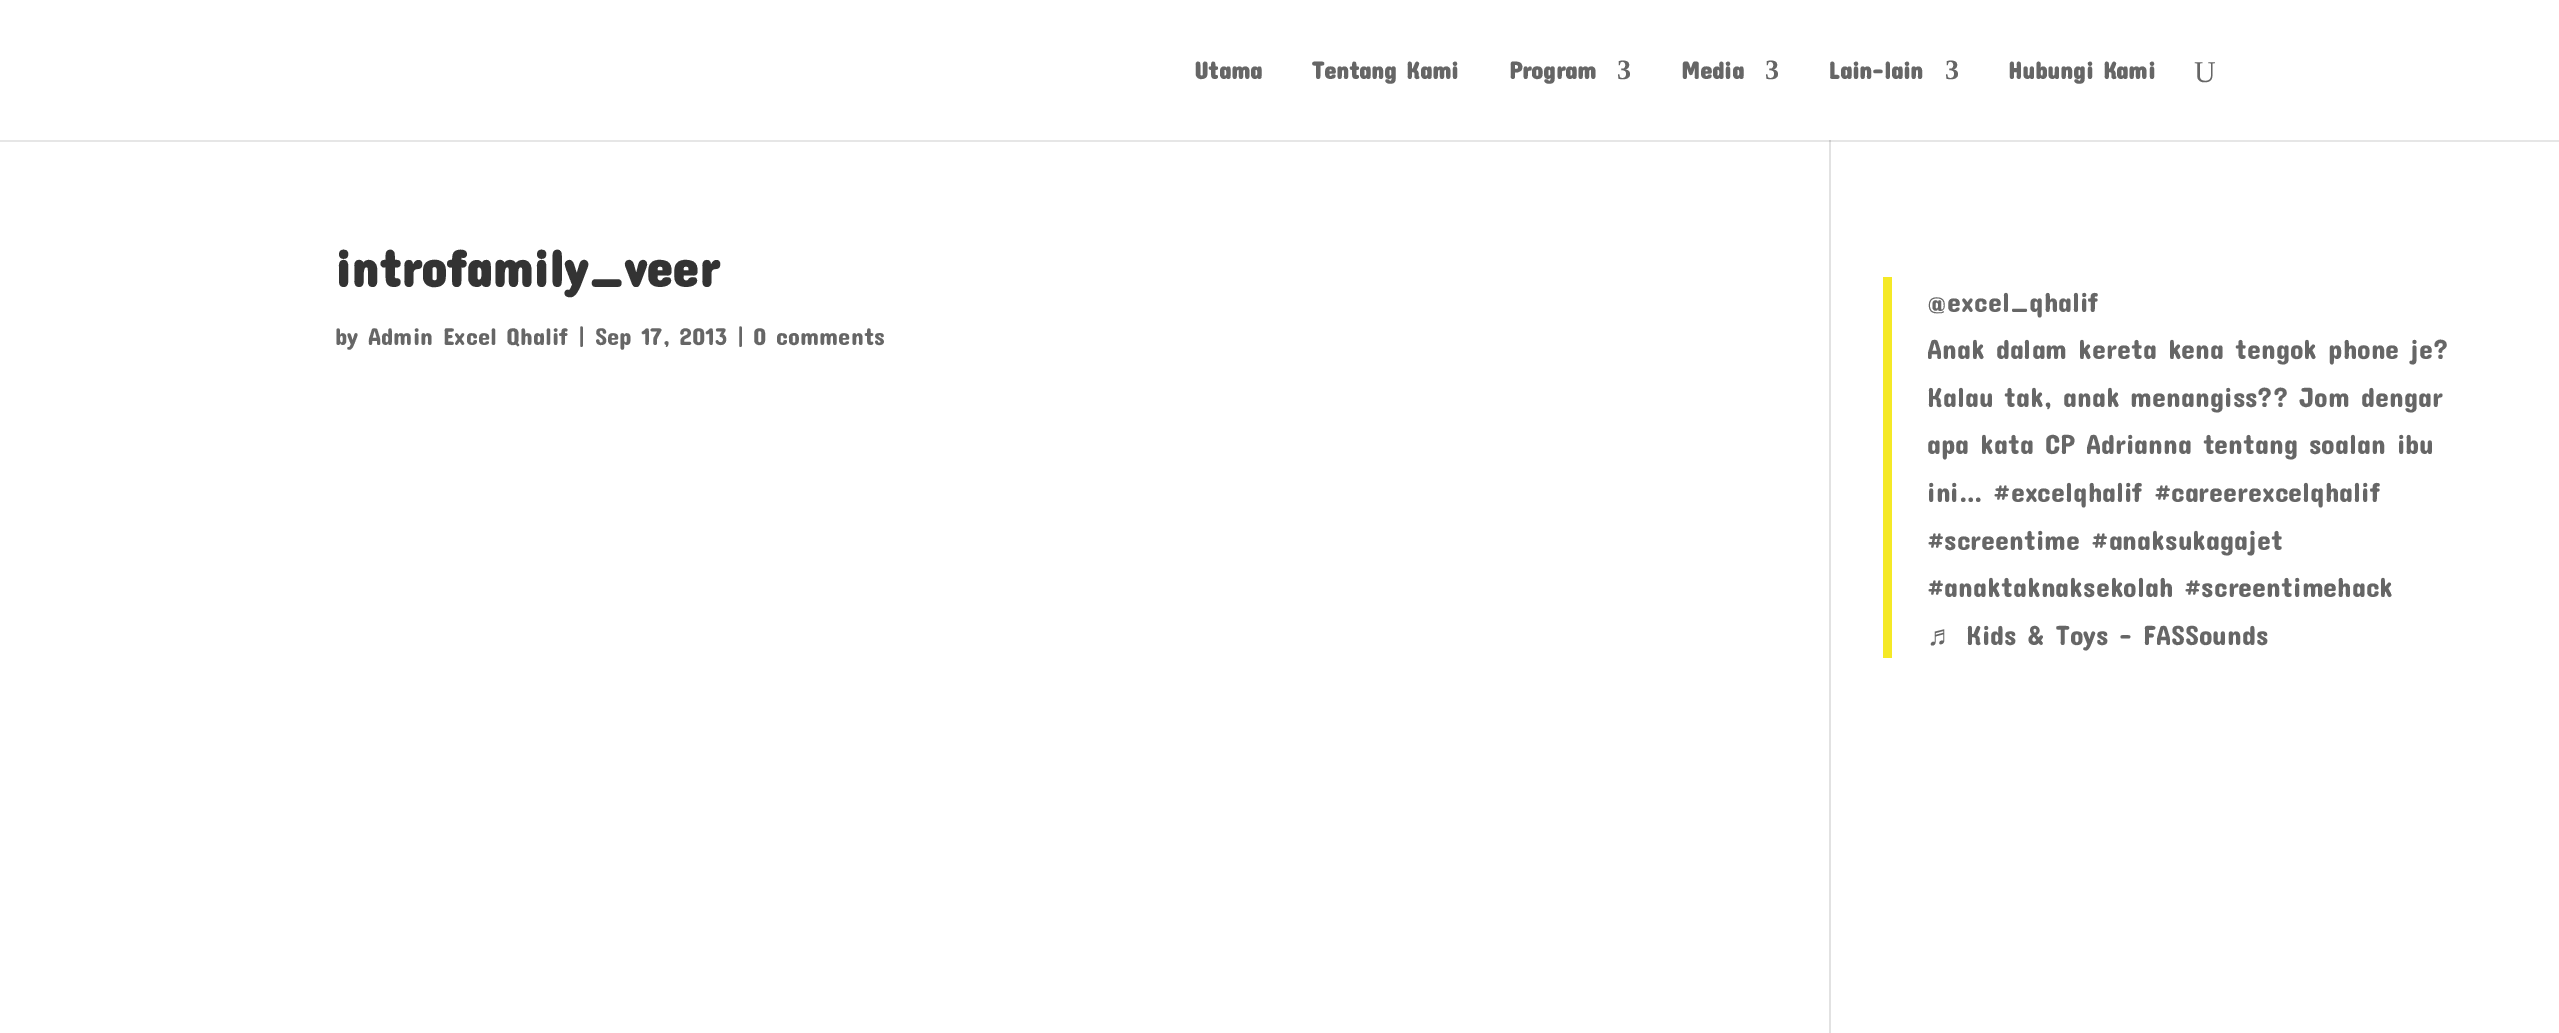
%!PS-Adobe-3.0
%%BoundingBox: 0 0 2559 1033
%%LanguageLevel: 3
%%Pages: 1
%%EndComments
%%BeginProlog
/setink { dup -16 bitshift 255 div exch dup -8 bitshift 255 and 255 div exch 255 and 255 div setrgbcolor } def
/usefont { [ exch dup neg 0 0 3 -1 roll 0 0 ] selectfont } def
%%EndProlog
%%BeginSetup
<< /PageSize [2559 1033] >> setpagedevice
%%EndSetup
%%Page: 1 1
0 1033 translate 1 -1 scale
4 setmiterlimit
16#FFFFFF setink
0 0 2559 1033 rectfill
/ConcertOne-Bold 24.5 usefont
16#666666 setink
[
    [(Utama) 1194 79]
    [(Tentang Kami) 1312 79]
    [(Program) 1509 79]
] { aload pop moveto show } forall
/LiberationSerif-Bold 28 usefont
1617 79 moveto (3) show
/ConcertOne-Bold 24.5 usefont
1681 79 moveto (Media) show
/LiberationSerif-Bold 28 usefont
1765 79 moveto (3) show
/ConcertOne-Bold 24.5 usefont
1828 79 moveto (Lain-lain) show
/LiberationSerif-Bold 28 usefont
1945 79 moveto (3) show
/ConcertOne-Bold 24.5 usefont
2008 79 moveto (Hubungi Kami) show
/LiberationSerif-Regular 30 usefont
2194 82 moveto (U) show
[
    [0 140 2559 2 16#E6E6E6]
    [1829 140 2 893 16#E2E2E2]
    [1829 140 2 2 16#CBCBCB]
] { aload pop setink rectfill } forall
/ConcertOne-Bold 52.5 usefont
16#333333 setink
335 287 moveto (introfamily_veer) show
/ConcertOne-Regular 24.5 usefont
16#666666 setink
335 345 moveto (by Admin Excel Qhalif | Sep 17, 2013 | 0 comments) show
16#F5E926 setink
1883 277 9 381 rectfill
/ConcertOne-Regular 28 usefont
16#666666 setink
[
    [(@excel_qhalif) 1927 312]
    [(Anak dalam kereta kena tengok phone je?) 1927 359]
    [(Kalau tak, anak menangiss?? Jom dengar) 1927 407]
    [(apa kata CP Adrianna tentang soalan ibu) 1927 454]
    [(ini… #excelqhalif #careerexcelqhalif) 1927 502]
    [(#screentime #anaksukagajet) 1927 550]
    [(#anaktaknaksekolah #screentimehack) 1927 597]
] { aload pop moveto show } forall
/LiberationSerif-Regular 28 usefont
1927 645 moveto (♬) show
/ConcertOne-Regular 28 usefont
1966 645 moveto (Kids & Toys - FASSounds) show
showpage
%%EOF
